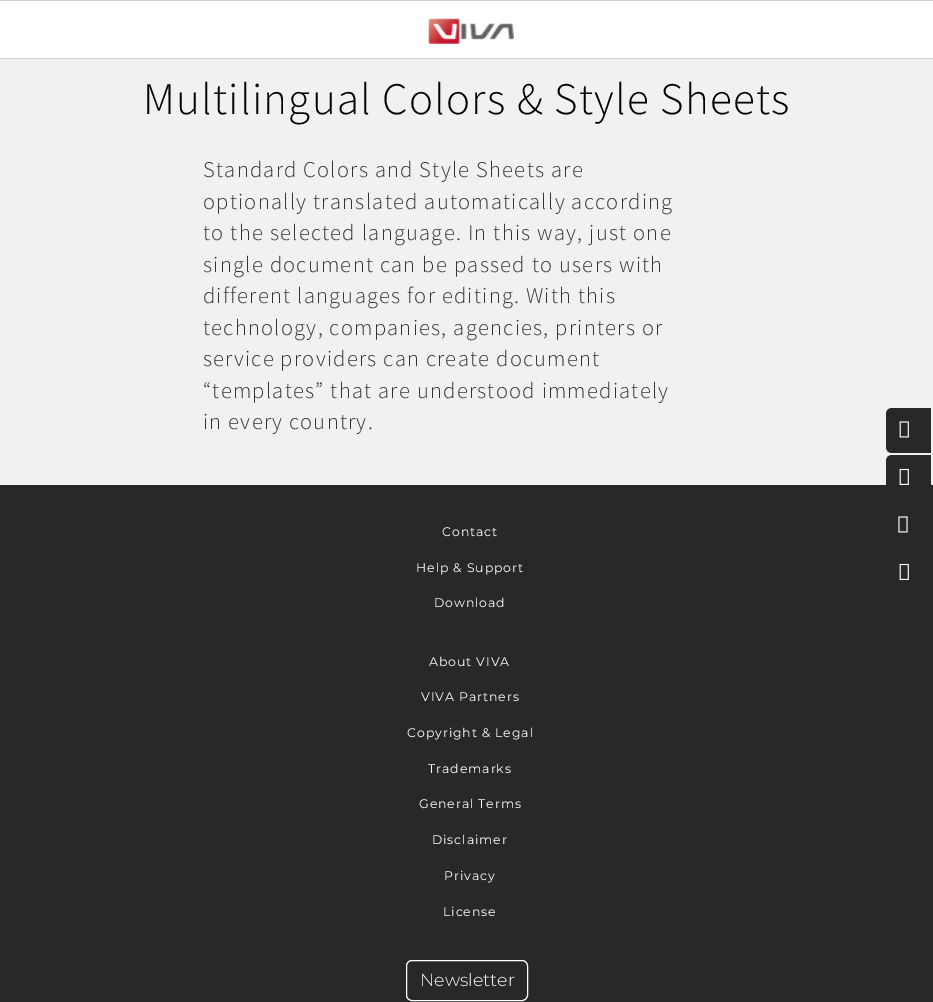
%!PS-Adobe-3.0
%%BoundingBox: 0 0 933 1002
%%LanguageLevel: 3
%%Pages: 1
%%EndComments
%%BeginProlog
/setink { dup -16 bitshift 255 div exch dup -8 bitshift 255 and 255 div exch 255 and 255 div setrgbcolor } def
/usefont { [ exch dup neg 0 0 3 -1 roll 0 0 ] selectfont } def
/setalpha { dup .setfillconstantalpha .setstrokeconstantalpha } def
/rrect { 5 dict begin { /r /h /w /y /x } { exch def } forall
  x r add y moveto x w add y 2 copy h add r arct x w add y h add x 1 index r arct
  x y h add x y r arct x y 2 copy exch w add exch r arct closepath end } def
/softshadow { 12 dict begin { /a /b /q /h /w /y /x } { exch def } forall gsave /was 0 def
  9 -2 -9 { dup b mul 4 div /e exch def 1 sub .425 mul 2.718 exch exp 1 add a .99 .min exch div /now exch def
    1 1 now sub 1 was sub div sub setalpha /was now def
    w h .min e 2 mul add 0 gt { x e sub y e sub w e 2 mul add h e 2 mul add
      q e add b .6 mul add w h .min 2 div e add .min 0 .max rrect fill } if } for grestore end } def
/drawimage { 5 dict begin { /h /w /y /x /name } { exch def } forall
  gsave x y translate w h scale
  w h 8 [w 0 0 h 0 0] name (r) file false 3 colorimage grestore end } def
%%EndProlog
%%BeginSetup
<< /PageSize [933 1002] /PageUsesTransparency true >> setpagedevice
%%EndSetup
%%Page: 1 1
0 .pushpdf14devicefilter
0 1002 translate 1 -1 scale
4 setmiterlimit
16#F2F1F1 setink
0 0 933 1002 rectfill
16#000000 setink
0 1 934 57 0 0.5 0.5 softshadow
16#FFFFFF setink
0 1 933 57 rectfill
(img1.raw) 428 18 86 26 drawimage
/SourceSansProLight-Light 45 usefont
16#000000 setink
143 114 moveto 1.25 0 (Multilingual Colors & Style Sheets) ashow
/SourceSansProLight-Light 22.5 usefont
16#333333 setink
203 177 moveto 1.25 0 (Standard Colors and Style Sheets are) ashow
203 209 moveto 1.25 0 (optionally translated automatically according) ashow
203 240 moveto 1.25 0 (to the selected language. In this way, just one) ashow
203 272 moveto 1.25 0 (single document can be passed to users with) ashow
203 303 moveto 1.25 0 (different languages for editing. With this) ashow
203 335 moveto 1.25 0 (technology, companies, agencies, printers or) ashow
203 366 moveto 1.25 0 (service providers can create document) ashow
203 398 moveto 1.25 0 (“templates” that are understood immediately) ashow
203 429 moveto 1.25 0 (in every country.) ashow
16#282828 setink
892 408 moveto 931 408 lineto 931 453 lineto 892 453 lineto 888.5 453 886 450.5 886 447 curveto 886 414 lineto 886 410.5 888.5 408 892 408 curveto closepath fill
(img2.raw) 899 421 10 17 drawimage
0 485 933 517 rectfill
892 455 moveto 931 455 lineto 931 500 lineto 892 500 lineto 888.5 500 886 497.5 886 494 curveto 886 461 lineto 886 457.5 888.5 455 892 455 curveto closepath fill
(img3.raw) 899 468 10 17 drawimage
(img4.raw) 898 516 10 17 drawimage
(img3.raw) 899 563 10 17 drawimage
/Montserrat-Thin 12.5 usefont
16#FFFFFF setink
442 536 moveto 0.9 0 (Contact) ashow
416 572 moveto 0.9 0 (Help & Support) ashow
434 607 moveto 0.9 0 (Download) ashow
429 666 moveto 0.9 0 (About VIVA) ashow
421 701 moveto 0.9 0 (VIVA Partners) ashow
407 737 moveto 0.9 0 (Copyright & Legal) ashow
428 773 moveto 0.9 0 (Trademarks) ashow
419 808 moveto 0.9 0 (General Terms) ashow
432 844 moveto 0.9 0 (Disclaimer) ashow
444 880 moveto 0.9 0 (Privacy) ashow
443 916 moveto 0.9 0 (License) ashow
406.5 960.5 121 40 5.5 rrect stroke
/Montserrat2-Thin 17.5 usefont
420 986 moveto (Newsletter) show
.poppdf14devicefilter showpage
%%EOF
